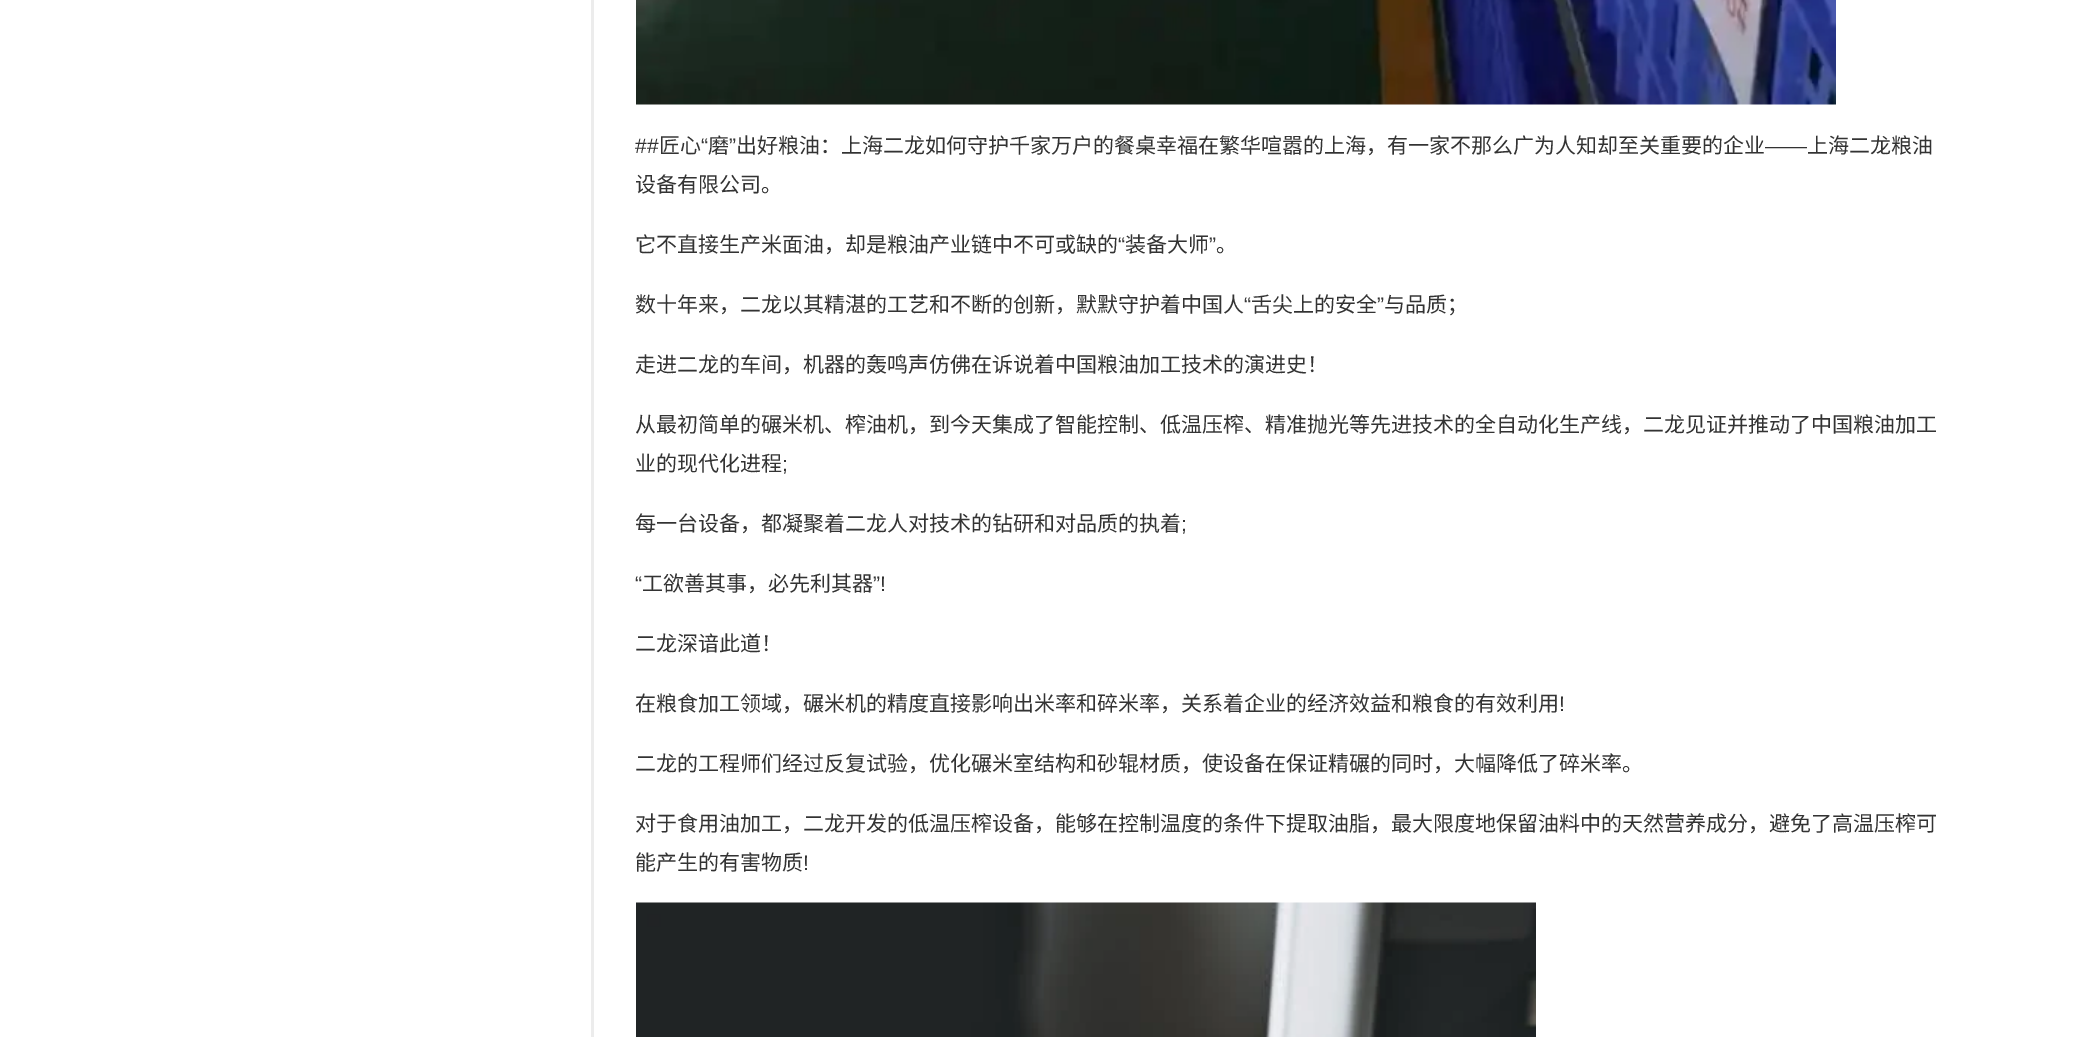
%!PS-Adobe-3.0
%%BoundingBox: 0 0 2080 1037
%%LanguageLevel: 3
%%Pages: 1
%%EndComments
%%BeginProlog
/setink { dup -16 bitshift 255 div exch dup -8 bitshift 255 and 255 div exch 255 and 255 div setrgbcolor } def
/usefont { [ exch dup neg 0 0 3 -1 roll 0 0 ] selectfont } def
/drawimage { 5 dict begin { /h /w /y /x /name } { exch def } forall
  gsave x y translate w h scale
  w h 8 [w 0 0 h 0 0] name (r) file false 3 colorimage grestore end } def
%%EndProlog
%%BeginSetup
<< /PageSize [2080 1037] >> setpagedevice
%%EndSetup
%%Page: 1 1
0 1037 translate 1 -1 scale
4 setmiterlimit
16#FFFFFF setink
0 0 2080 1037 rectfill
16#ECECEC setink
591 0 3 1037 rectfill
(img1.raw) 636 0 1200 105 drawimage
/LiberationSans-Regular 21 usefont
16#333333 setink
635 153 moveto (##) show
/NotoSansCJKSC-Regular 21 usefont
659 153 moveto (匠心) show
/LiberationSans-Regular 21 usefont
701 153 moveto (“) show
/NotoSansCJKSC-Regular 21 usefont
708 153 moveto (磨) show
/LiberationSans-Regular 21 usefont
729 153 moveto (”) show
/NotoSansCJKSC-Regular 21 usefont
736 153 moveto (出好粮油：上海二龙如何守护千家万户的餐桌幸福在繁华喧嚣的上海，有一家不那么广为人知却至关重要的企业) show
1807 153 moveto (上海二龙粮油) show
/LiberationSans-Regular 21 usefont
1765 153 moveto (——) show
/NotoSansCJKSC-Regular 21 usefont
635 192 moveto (设备有限公司。) show
635 252 moveto (它不直接生产米面油，却是粮油产业链中不可或缺的) show
/LiberationSans-Regular 21 usefont
1118 252 moveto (“) show
/NotoSansCJKSC-Regular 21 usefont
1125 252 moveto (装备大师) show
/LiberationSans-Regular 21 usefont
1209 252 moveto (”) show
/NotoSansCJKSC-Regular 21 usefont
1216 252 moveto (。) show
635 312 moveto (数十年来，二龙以其精湛的工艺和不断的创新，默默守护着中国人) show
/LiberationSans-Regular 21 usefont
1244 312 moveto (“) show
/NotoSansCJKSC-Regular 21 usefont
1251 312 moveto (舌尖上的安全) show
/LiberationSans-Regular 21 usefont
1377 312 moveto (”) show
/NotoSansCJKSC-Regular 21 usefont
[
    [(与品质；) 1384 312]
    [(走进二龙的车间，机器的轰鸣声仿佛在诉说着中国粮油加工技术的演进史！) 635 372]
    [(从最初简单的碾米机、榨油机，到今天集成了智能控制、低温压榨、精准抛光等先进技术的全自动化生产线，二龙见证并推动了中国粮油加工) 635 432]
    [(业的现代化进程) 635 471]
] { aload pop moveto show } forall
/LiberationSans-Regular 21 usefont
782 471 moveto (;) show
/NotoSansCJKSC-Regular 21 usefont
635 531 moveto (每一台设备，都凝聚着二龙人对技术的钻研和对品质的执着) show
/LiberationSans-Regular 21 usefont
1181 531 moveto (;) show
635 591 moveto (“) show
/NotoSansCJKSC-Regular 21 usefont
642 591 moveto (工欲善其事，必先利其器) show
/LiberationSans-Regular 21 usefont
873 591 moveto (”!) show
/NotoSansCJKSC-Regular 21 usefont
635 651 moveto (二龙深谙此道！) show
635 711 moveto (在粮食加工领域，碾米机的精度直接影响出米率和碎米率，关系着企业的经济效益和粮食的有效利用) show
/LiberationSans-Regular 21 usefont
1559 711 moveto (!) show
/NotoSansCJKSC-Regular 21 usefont
[
    [(二龙的工程师们经过反复试验，优化碾米室结构和砂辊材质，使设备在保证精碾的同时，大幅降低了碎米率。) 635 771]
    [(对于食用油加工，二龙开发的低温压榨设备，能够在控制温度的条件下提取油脂，最大限度地保留油料中的天然营养成分，避免了高温压榨可) 635 831]
    [(能产生的有害物质) 635 870]
] { aload pop moveto show } forall
/LiberationSans-Regular 21 usefont
803 870 moveto (!) show
(img2.raw) 636 902 900 135 drawimage
showpage
%%EOF
